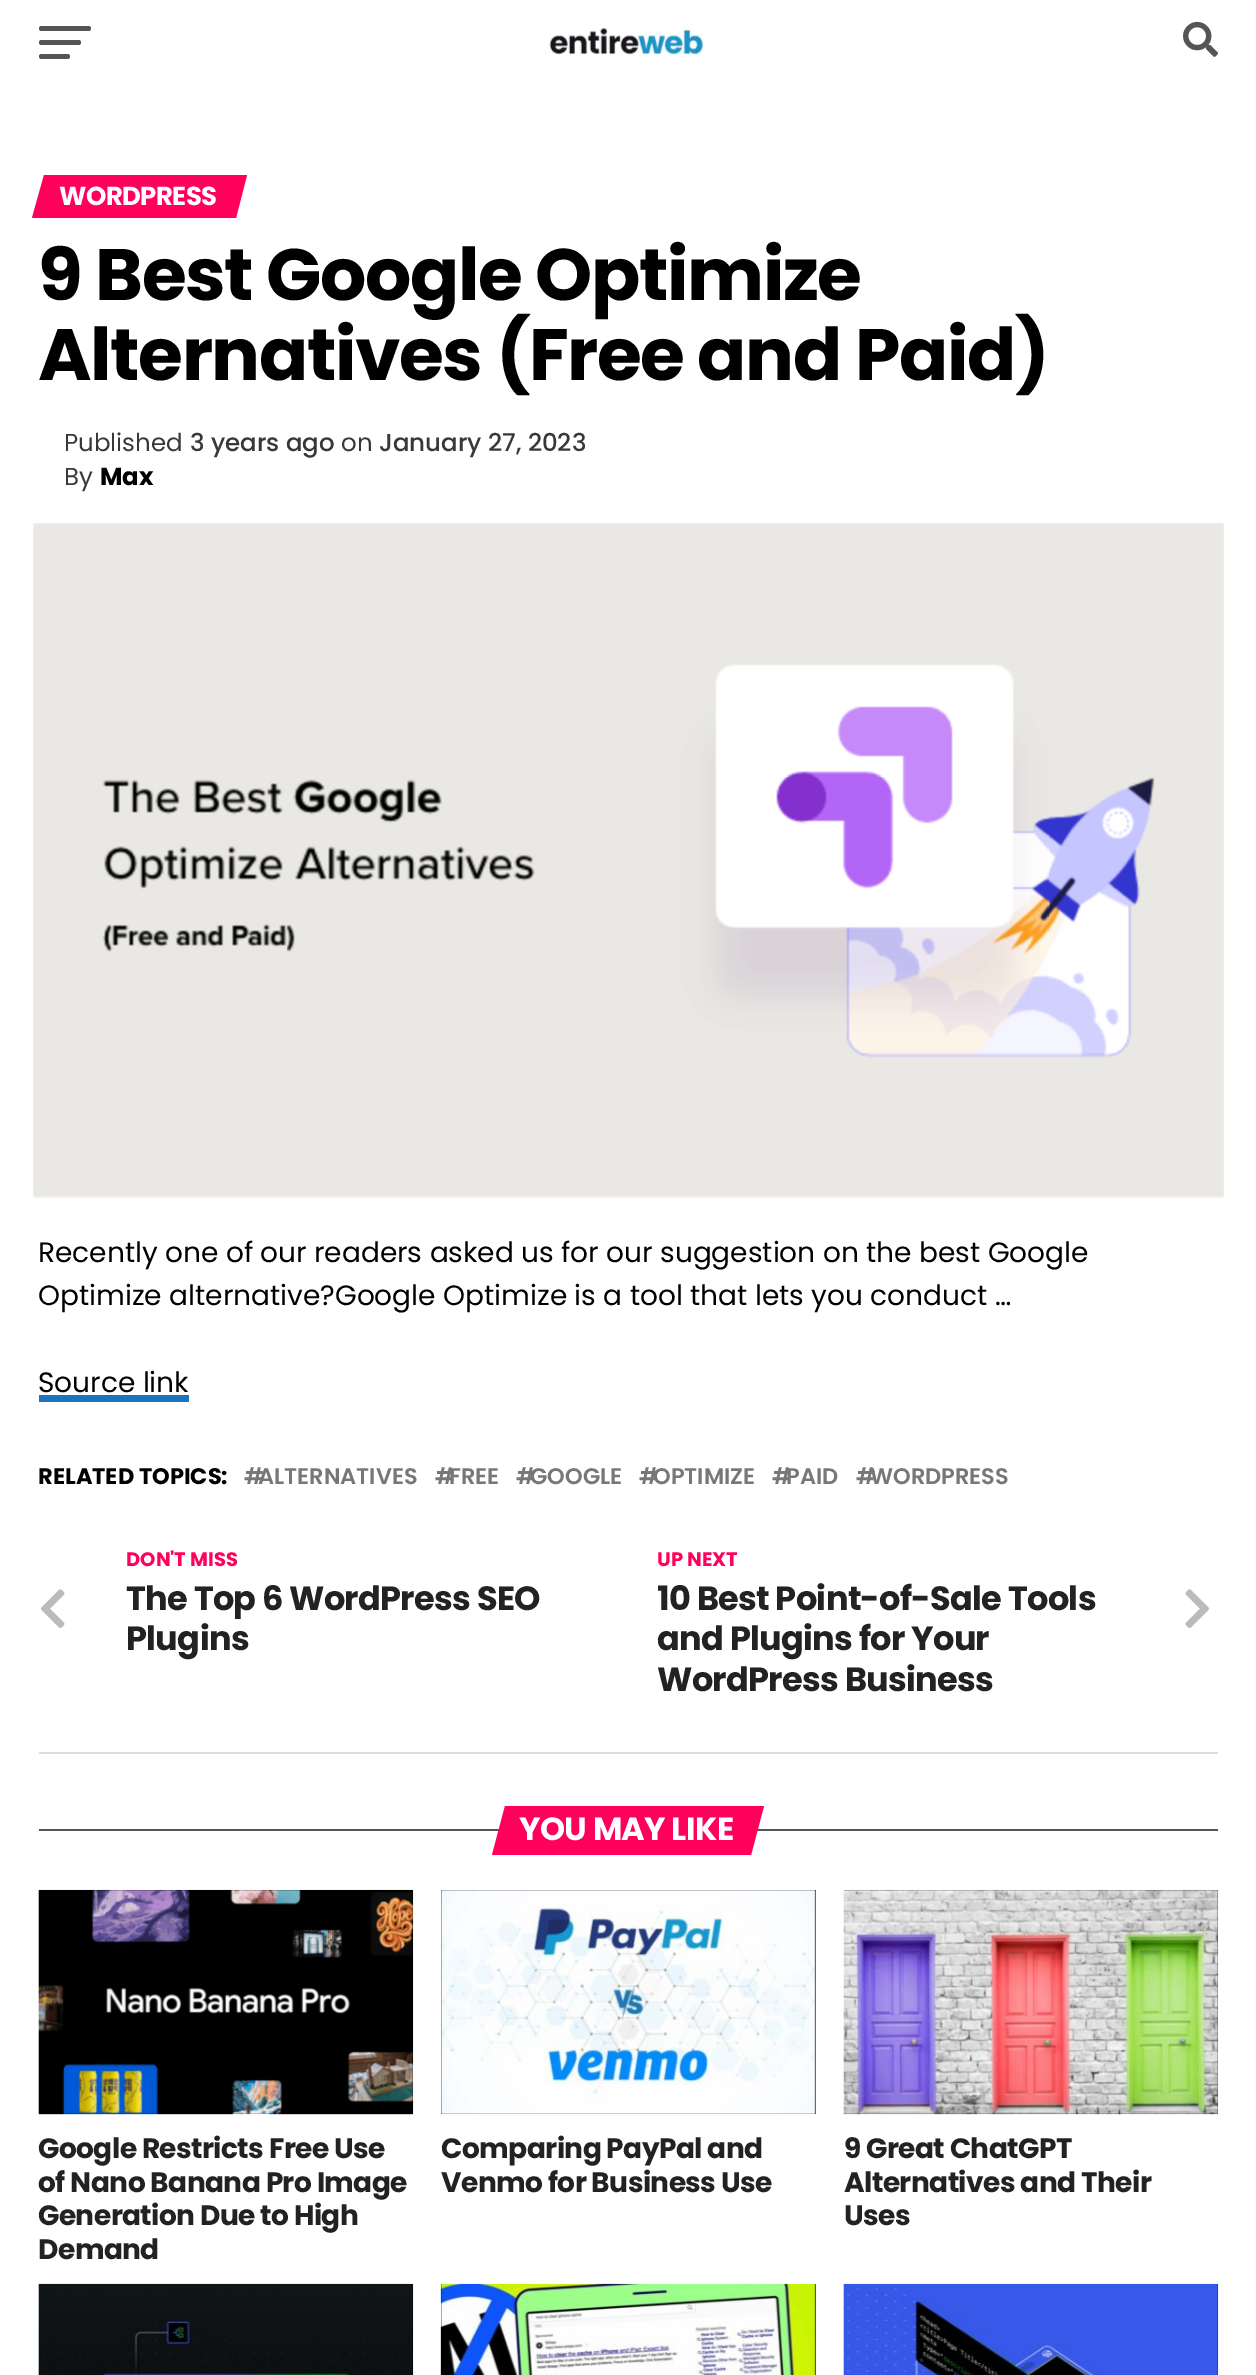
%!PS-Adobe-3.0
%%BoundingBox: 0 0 1256 2375
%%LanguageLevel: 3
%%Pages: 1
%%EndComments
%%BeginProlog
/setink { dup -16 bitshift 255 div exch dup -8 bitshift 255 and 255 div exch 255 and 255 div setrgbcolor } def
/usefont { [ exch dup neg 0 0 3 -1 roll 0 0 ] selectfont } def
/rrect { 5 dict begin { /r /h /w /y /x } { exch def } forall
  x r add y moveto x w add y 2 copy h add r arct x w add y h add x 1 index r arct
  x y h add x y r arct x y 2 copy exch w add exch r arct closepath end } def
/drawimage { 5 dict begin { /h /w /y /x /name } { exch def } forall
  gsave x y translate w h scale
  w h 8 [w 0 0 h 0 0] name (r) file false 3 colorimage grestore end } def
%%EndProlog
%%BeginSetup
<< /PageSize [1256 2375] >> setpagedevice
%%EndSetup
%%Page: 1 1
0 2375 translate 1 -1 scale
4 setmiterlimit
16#FFFFFF setink
0 0 1256 2375 rectfill
16#555555 setink
39 26 52 5 2.5 rrect fill
39 40 42 5 2.5 rrect fill
39 54 31 5 2.5 rrect fill
(img1.raw) 549 28 155 30 drawimage
(img2.raw) 1183 21 35 36 drawimage
16#FF005B setink
44 175 moveto 247 175 lineto 236 218 lineto 32 218 lineto closepath fill
/Poppins-Bold 26 usefont
16#FFFFFF setink
59 205 moveto -0.6 0 (WORDPRESS) ashow
/Poppins-Bold 72.75 usefont
16#000000 setink
38 300 moveto -1.45 0 (9 Best Google Optimize) ashow
38 380 moveto -1.45 0 (Alternatives \(Free and Paid\)) ashow
/Poppins-Regular 24.5 usefont
16#383838 setink
64 451 moveto (Published) show
/Poppins-Medium 24.5 usefont
190 451 moveto (3 years ago) show
/Poppins-Regular 24.5 usefont
341 451 moveto (on) show
/Poppins-Medium 24.5 usefont
379 451 moveto (January 27, 2023) show
/Poppins-Regular 24.5 usefont
64 485 moveto (By) show
/Poppins-Bold 24.5 usefont
16#000000 setink
100 485 moveto (Max) show
(img3.raw) 32 522 1192 676 drawimage
/Poppins-Regular 28 usefont
[
    [(Recently one of our readers asked us for our suggestion on the best Google) 38 1262]
    [(Optimize alternative?Google Optimize is a tool that lets you conduct …) 38 1305]
    [(Source link) 38 1392]
] { aload pop moveto show } forall
16#1E73BE setink
39 1395 150 7 rectfill
/Poppins-Bold 22.5 usefont
16#000000 setink
38 1484 moveto (RELATED TOPICS:) show
/Poppins-SemiBold 22.5 usefont
16#777777 setink
[
    [(ALTERNATIVES) 258 1484]
    [(#) 244 1484]
    [(FREE) 449 1484]
    [(#) 435 1484]
    [(GOOGLE) 530 1484]
    [(#) 516 1484]
    [(OPTIMIZE) 653 1484]
    [(#) 639 1484]
    [(PAID) 786 1484]
    [(#) 772 1484]
    [(WORDPRESS) 870 1484]
    [(#) 856 1484]
] { aload pop moveto show } forall
16#DDDDDD setink
39 1752 1179 2 rectfill
(img4.raw) 41 1589 24 39 drawimage
/Poppins-Bold 19.5 usefont
16#FF005B setink
126 1566 moveto (DON'T MISS) show
/Poppins-Bold 33.6 usefont
16#222222 setink
126 1610 moveto -0.7 0 (The Top 6 WordPress SEO) ashow
126 1650 moveto -0.7 0 (Plugins) ashow
/Poppins-Bold 19.5 usefont
16#FF005B setink
657 1566 moveto (UP NEXT) show
/Poppins-Bold 33.6 usefont
16#222222 setink
657 1610 moveto -0.7 0 (10 Best Point-of-Sale Tools) ashow
657 1650 moveto -0.7 0 (and Plugins for Your) ashow
657 1691 moveto -0.7 0 (WordPress Business) ashow
(img5.raw) 1185 1589 24 39 drawimage
16#555555 setink
39 1829 1179 2 rectfill
16#FF005B setink
505 1806 moveto 764 1806 lineto 751 1855 lineto 492 1855 lineto closepath fill
/Poppins-Bold 32 usefont
16#FFFFFF setink
519 1840 moveto -0.6 0 (YOU MAY LIKE) ashow
16#000000 setink
39 1890 374 224 rectfill
(img6.raw) 38 1889 376 226 drawimage
/Poppins-Bold 28 usefont
16#222222 setink
38 2158 moveto -0.55 0 (Google Restricts Free Use) ashow
38 2192 moveto -0.55 0 (of Nano Banana Pro Image) ashow
38 2225 moveto -0.55 0 (Generation Due to High) ashow
38 2259 moveto -0.55 0 (Demand) ashow
16#000000 setink
441 1890 375 224 rectfill
(img7.raw) 441 1890 375 224 drawimage
16#222222 setink
441 2158 moveto -0.55 0 (Comparing PayPal and) ashow
441 2192 moveto -0.55 0 (Venmo for Business Use) ashow
16#000000 setink
844 1890 374 224 rectfill
(img8.raw) 843 1889 376 226 drawimage
16#222222 setink
844 2158 moveto -0.55 0 (9 Great ChatGPT) ashow
844 2192 moveto -0.55 0 (Alternatives and Their) ashow
844 2225 moveto -0.55 0 (Uses) ashow
(img9.raw) 38 2283 376 92 drawimage
16#000000 setink
441 2284 375 91 rectfill
(img10.raw) 440 2283 376 92 drawimage
(img11.raw) 843 2283 376 92 drawimage
showpage
%%EOF
